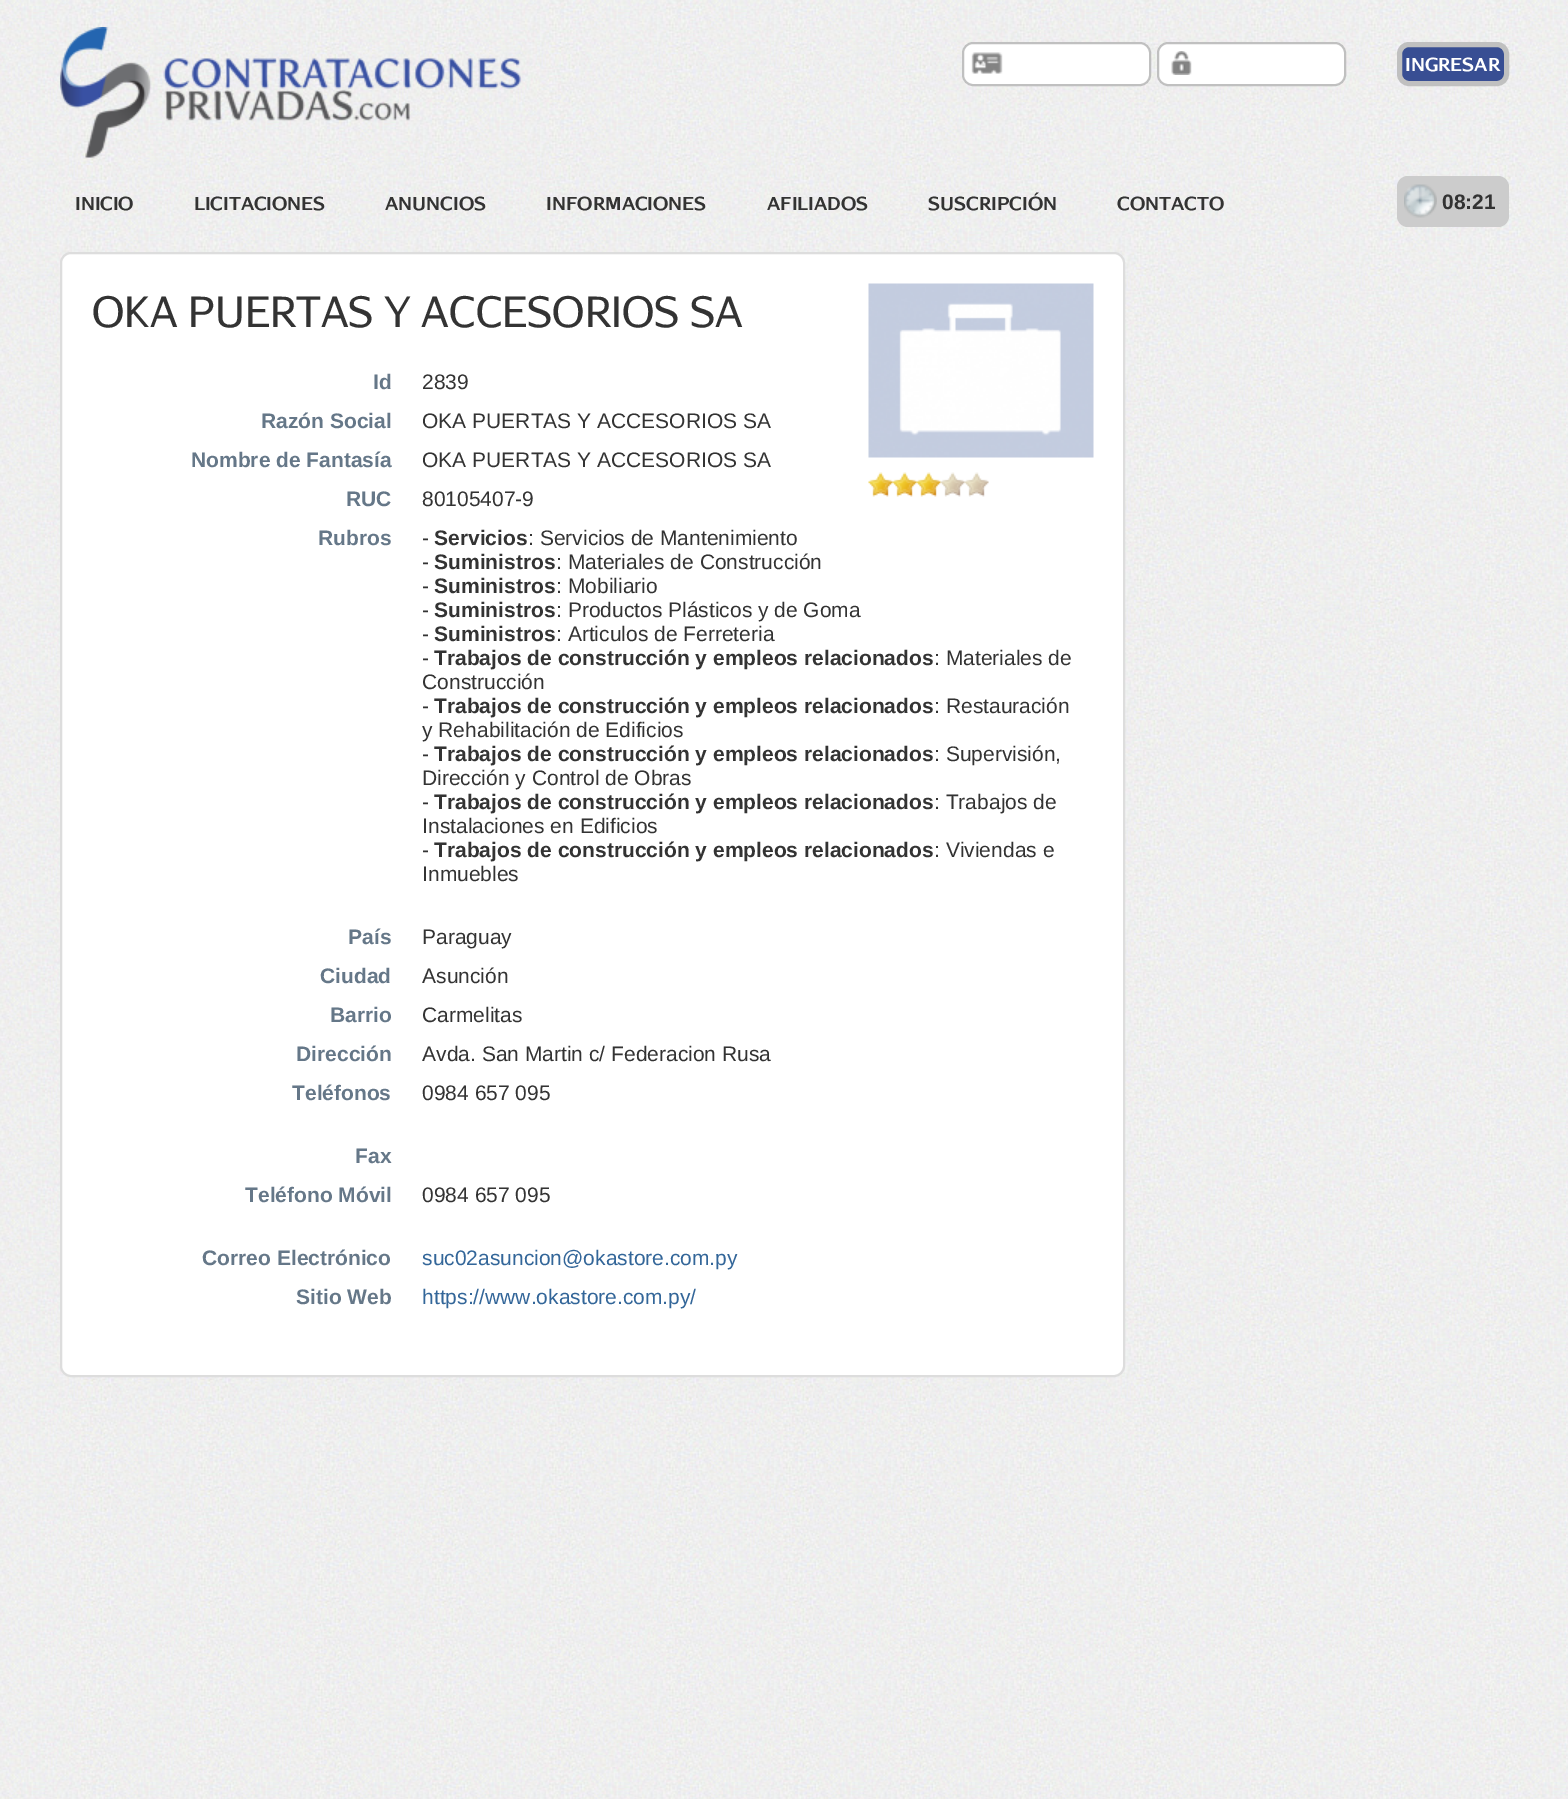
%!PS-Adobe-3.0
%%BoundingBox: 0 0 1568 1799
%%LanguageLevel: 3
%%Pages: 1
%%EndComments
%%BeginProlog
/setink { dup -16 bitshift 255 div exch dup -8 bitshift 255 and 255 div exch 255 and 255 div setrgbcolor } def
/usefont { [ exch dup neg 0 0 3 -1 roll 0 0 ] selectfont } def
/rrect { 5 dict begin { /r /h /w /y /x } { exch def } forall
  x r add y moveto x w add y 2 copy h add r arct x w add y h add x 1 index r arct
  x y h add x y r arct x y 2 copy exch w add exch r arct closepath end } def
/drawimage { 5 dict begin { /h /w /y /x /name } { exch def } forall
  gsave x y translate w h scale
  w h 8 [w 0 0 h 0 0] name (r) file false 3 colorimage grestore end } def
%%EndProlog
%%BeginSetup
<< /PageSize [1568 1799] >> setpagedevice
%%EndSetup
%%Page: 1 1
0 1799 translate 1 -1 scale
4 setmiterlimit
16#FFFFFF setink
0 0 1568 1799 rectfill
(img1.raw) 0 0 1568 1799 drawimage
(img2.raw) 60 27 461 131 drawimage
962 42 189 44 11 rrect fill
(img3.raw) 971 52 32 22 drawimage
16#C0C0C0 setink
2 setlinewidth
963 43 187 42 10 rrect stroke
16#FFFFFF setink
1157 42 189 44 11 rrect fill
(img4.raw) 1171 51 21 24 drawimage
16#C0C0C0 setink
1158 43 187 42 10 rrect stroke
16#384E93 setink
1399.5 44.5 107 39 9.5 rrect gsave fill grestore
16#C0C0C0 setink
5 setlinewidth
stroke
/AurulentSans-Bold 18 usefont
16#FFFFFF setink
1405 71 moveto (INGRESAR) show
16#333333 setink
[
    [(INICIO) 75 210]
    [(LICITACIONES) 194 210]
    [(ANUNCIOS) 385 210]
    [(INFORMACIONES) 546 210]
    [(AFILIADOS) 767 210]
    [(SUSCRIPCIÓN) 928 210]
    [(CONTACTO) 1117 210]
] { aload pop moveto show } forall
16#CCCCCC setink
1397 176 112 51 11 rrect fill
(img5.raw) 1404 184 33 34 drawimage
/LiberationSans-Bold 21 usefont
16#333333 setink
1442 209 moveto (08:21) show
16#FFFFFF setink
61 253 1063 1123 10 rrect gsave fill grestore
16#DDDDDD setink
2 setlinewidth
stroke
/AurulentSans-Regular 42 usefont
16#333333 setink
92 327 moveto (OKA PUERTAS Y ACCESORIOS SA) show
(img6.raw) 868 283 226 175 drawimage
(img7.raw) 868 472 25 25 drawimage
(img8.raw) 892 472 25 25 drawimage
(img8.raw) 916 472 25 25 drawimage
(img9.raw) 940 472 25 25 drawimage
(img10.raw) 964 472 25 25 drawimage
/LiberationSans-Bold 21 usefont
16#657788 setink
373 389 moveto (Id) show
/LiberationSans-Regular 21 usefont
16#333333 setink
422 389 moveto (2839) show
/LiberationSans-Bold 21 usefont
16#657788 setink
261 428 moveto (Razón Social) show
/LiberationSans-Regular 21 usefont
16#333333 setink
422 428 moveto (OKA PUERTAS Y ACCESORIOS SA) show
/LiberationSans-Bold 21 usefont
16#657788 setink
191 467 moveto (Nombre de Fantasía) show
/LiberationSans-Regular 21 usefont
16#333333 setink
422 467 moveto (OKA PUERTAS Y ACCESORIOS SA) show
/LiberationSans-Bold 21 usefont
16#657788 setink
346 506 moveto (RUC) show
/LiberationSans-Regular 21 usefont
16#333333 setink
422 506 moveto (80105407-9) show
/LiberationSans-Bold 21 usefont
16#657788 setink
318 545 moveto (Rubros) show
/LiberationSans-Regular 21 usefont
16#333333 setink
422 545 moveto (-) show
/LiberationSans-Bold 21 usefont
434 545 moveto (Servicios) show
/LiberationSans-Regular 21 usefont
528 545 moveto (: Servicios de Mantenimiento) show
422 569 moveto (-) show
/LiberationSans-Bold 21 usefont
434 569 moveto (Suministros) show
/LiberationSans-Regular 21 usefont
556 569 moveto (: Materiales de Construcción) show
422 593 moveto (-) show
/LiberationSans-Bold 21 usefont
434 593 moveto (Suministros) show
/LiberationSans-Regular 21 usefont
556 593 moveto (: Mobiliario) show
422 617 moveto (-) show
/LiberationSans-Bold 21 usefont
434 617 moveto (Suministros) show
/LiberationSans-Regular 21 usefont
556 617 moveto (: Productos Plásticos y de Goma) show
422 641 moveto (-) show
/LiberationSans-Bold 21 usefont
434 641 moveto (Suministros) show
/LiberationSans-Regular 21 usefont
556 641 moveto (: Articulos de Ferreteria) show
422 665 moveto (-) show
/LiberationSans-Bold 21 usefont
434 665 moveto (Trabajos de construcción y empleos relacionados) show
/LiberationSans-Regular 21 usefont
[
    [(: Materiales de) 934 665]
    [(Construcción) 422 689]
    [(-) 422 713]
] { aload pop moveto show } forall
/LiberationSans-Bold 21 usefont
434 713 moveto (Trabajos de construcción y empleos relacionados) show
/LiberationSans-Regular 21 usefont
[
    [(: Restauración) 934 713]
    [(y Rehabilitación de Edificios) 422 737]
    [(-) 422 761]
] { aload pop moveto show } forall
/LiberationSans-Bold 21 usefont
434 761 moveto (Trabajos de construcción y empleos relacionados) show
/LiberationSans-Regular 21 usefont
[
    [(: Supervisión,) 934 761]
    [(Dirección y Control de Obras) 422 785]
    [(-) 422 809]
] { aload pop moveto show } forall
/LiberationSans-Bold 21 usefont
434 809 moveto (Trabajos de construcción y empleos relacionados) show
/LiberationSans-Regular 21 usefont
[
    [(: Trabajos de) 934 809]
    [(Instalaciones en Edificios) 422 833]
    [(-) 422 857]
] { aload pop moveto show } forall
/LiberationSans-Bold 21 usefont
434 857 moveto (Trabajos de construcción y empleos relacionados) show
/LiberationSans-Regular 21 usefont
934 857 moveto (: Viviendas e) show
422 881 moveto (Inmuebles) show
/LiberationSans-Bold 21 usefont
16#657788 setink
348 944 moveto (País) show
/LiberationSans-Regular 21 usefont
16#333333 setink
422 944 moveto (Paraguay) show
/LiberationSans-Bold 21 usefont
16#657788 setink
320 983 moveto (Ciudad) show
/LiberationSans-Regular 21 usefont
16#333333 setink
422 983 moveto (Asunción) show
/LiberationSans-Bold 21 usefont
16#657788 setink
330 1022 moveto (Barrio) show
/LiberationSans-Regular 21 usefont
16#333333 setink
422 1022 moveto (Carmelitas) show
/LiberationSans-Bold 21 usefont
16#657788 setink
296 1061 moveto (Dirección) show
/LiberationSans-Regular 21 usefont
16#333333 setink
422 1061 moveto (Avda. San Martin c/ Federacion Rusa) show
/LiberationSans-Bold 21 usefont
16#657788 setink
292 1100 moveto (Teléfonos) show
/LiberationSans-Regular 21 usefont
16#333333 setink
422 1100 moveto (0984 657 095) show
/LiberationSans-Bold 21 usefont
16#657788 setink
355 1163 moveto (Fax) show
245 1202 moveto (Teléfono Móvil) show
/LiberationSans-Regular 21 usefont
16#333333 setink
422 1202 moveto (0984 657 095) show
/LiberationSans-Bold 21 usefont
16#657788 setink
202 1265 moveto (Correo Electrónico) show
/LiberationSans-Regular 21 usefont
16#336699 setink
422 1265 moveto (suc02asuncion@okastore.com.py) show
/LiberationSans-Bold 21 usefont
16#657788 setink
296 1304 moveto (Sitio Web) show
/LiberationSans-Regular 21 usefont
16#336699 setink
422 1304 moveto (https://www.okastore.com.py/) show
showpage
%%EOF
